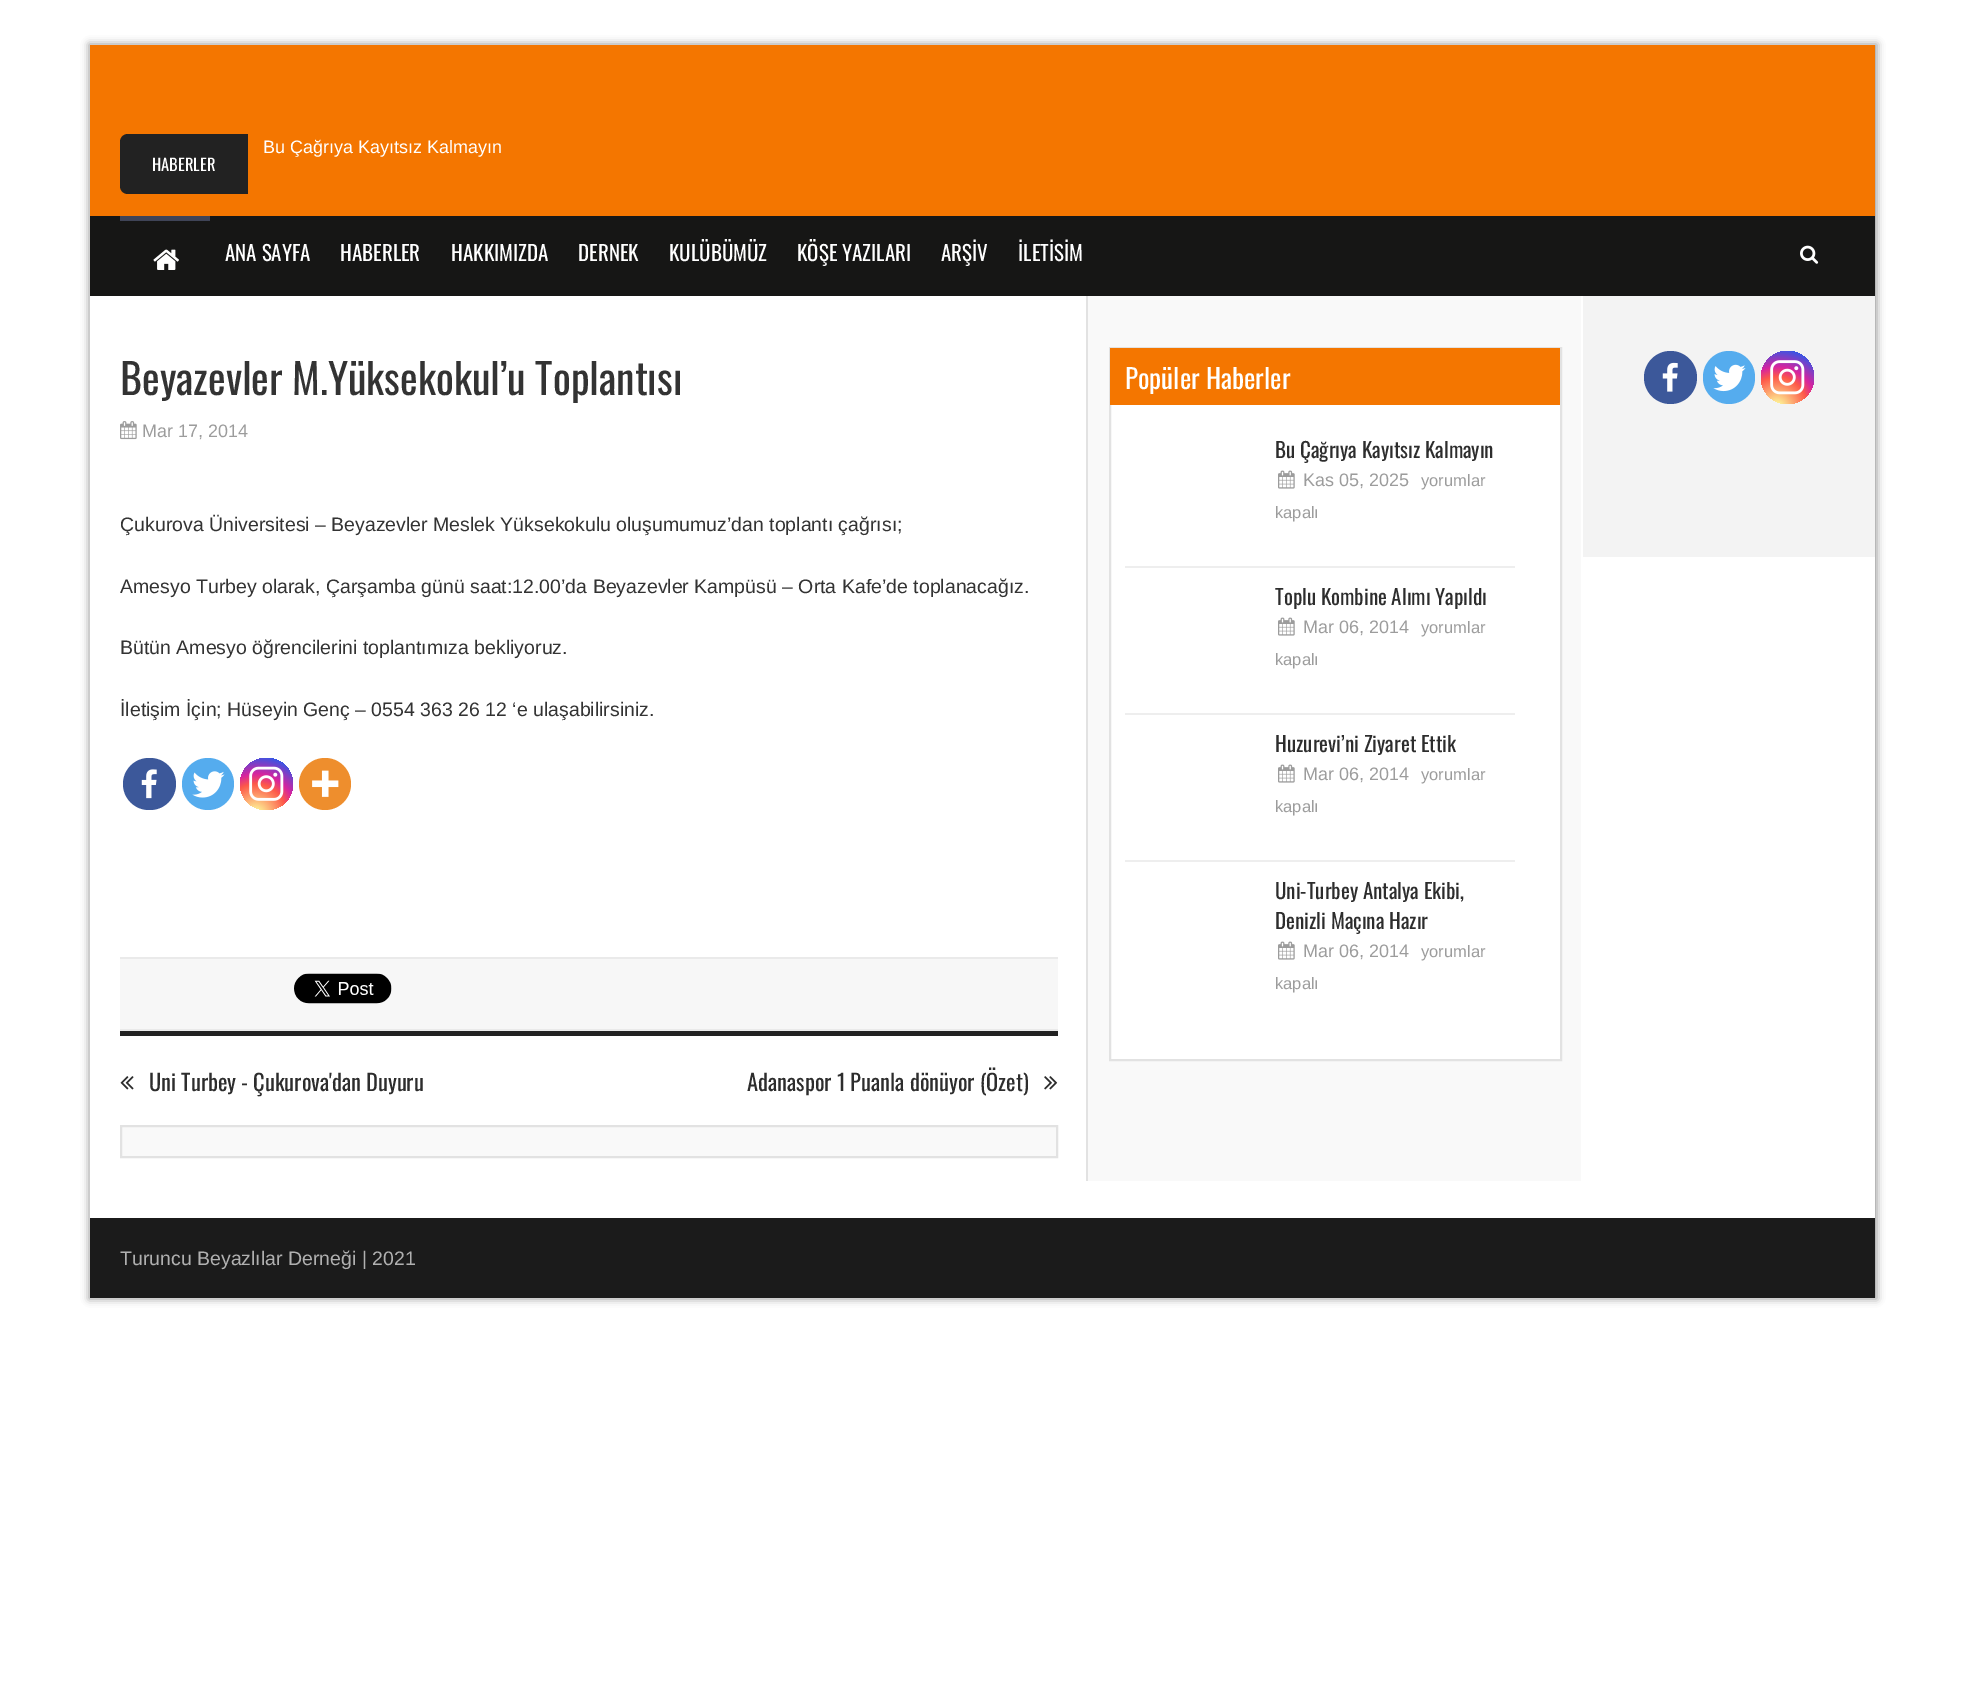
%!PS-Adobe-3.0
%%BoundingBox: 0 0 1965 1707
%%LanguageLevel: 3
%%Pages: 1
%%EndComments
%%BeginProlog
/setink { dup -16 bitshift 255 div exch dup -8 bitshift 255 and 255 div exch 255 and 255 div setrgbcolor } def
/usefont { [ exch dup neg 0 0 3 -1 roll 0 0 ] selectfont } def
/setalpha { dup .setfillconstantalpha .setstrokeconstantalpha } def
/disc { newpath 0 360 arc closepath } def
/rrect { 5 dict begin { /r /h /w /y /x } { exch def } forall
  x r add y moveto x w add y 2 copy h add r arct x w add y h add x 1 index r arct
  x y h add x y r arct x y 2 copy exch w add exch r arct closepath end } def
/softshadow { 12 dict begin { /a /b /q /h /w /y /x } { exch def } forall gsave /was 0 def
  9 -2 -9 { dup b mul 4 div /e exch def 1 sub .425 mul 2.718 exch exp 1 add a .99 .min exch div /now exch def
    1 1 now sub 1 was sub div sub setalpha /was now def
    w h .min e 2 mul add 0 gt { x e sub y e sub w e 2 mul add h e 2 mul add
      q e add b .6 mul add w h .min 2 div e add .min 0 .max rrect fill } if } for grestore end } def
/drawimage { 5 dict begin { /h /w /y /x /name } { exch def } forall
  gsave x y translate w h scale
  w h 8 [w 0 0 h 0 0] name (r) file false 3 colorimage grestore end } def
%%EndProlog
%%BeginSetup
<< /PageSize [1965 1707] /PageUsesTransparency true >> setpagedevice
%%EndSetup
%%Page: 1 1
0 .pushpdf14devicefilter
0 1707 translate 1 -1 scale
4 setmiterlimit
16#FFFFFF setink
0 0 1965 1707 rectfill
16#000000 setink
89 44 1788 1255 0 4 0.4 softshadow
16#FFFFFF setink
90 296 1785 922 rectfill
16#F47600 setink
90 45 1785 171 rectfill
/LiberationSans-Regular 18 usefont
16#FFFFFF setink
263 153 moveto (Bu Çağrıya Kayıtsız Kalmayın) show
16#222222 setink
128 134 moveto 248 134 lineto 248 194 lineto 128 194 lineto 123.5 194 120 190.5 120 186 curveto 120 142 lineto 120 137.5 123.5 134 128 134 curveto closepath fill
/Oswald-Regular 16.5 usefont
16#FFFFFF setink
152 171 moveto (HABERLER) show
16#161615 setink
90 216 1785 80 rectfill
16#3F4457 setink
120 216 90 5 rectfill
(img1.raw) 153 249 26 21 drawimage
/Oswald-Regular 21 usefont
16#FFFFFF setink
[
    [(ANA SAYFA) 225 261]
    [(HABERLER) 340 261]
    [(HAKKIMIZDA) 451 261]
    [(DERNEK) 578 261]
    [(KULÜBÜMÜZ) 669 261]
    [(KÖŞE YAZILARI) 797 261]
    [(ARŞİV) 941 261]
    [(İLETİSİM) 1018 261]
] { aload pop moveto show } forall
(img2.raw) 1800 245 19 19 drawimage
/Oswald-Regular 42 usefont
16#333333 setink
120 395 moveto (Beyazevler M.Yüksekokul’u Toplantısı) show
(img3.raw) 120 421 17 19 drawimage
/LiberationSans-Regular 18 usefont
16#9C9C9C setink
142 437 moveto (Mar 17, 2014) show
/LiberationSans-Regular 19.5 usefont
16#333333 setink
[
    [(Çukurova Üniversitesi – Beyazevler Meslek Yüksekokulu oluşumumuz’dan toplantı çağrısı;) 120 531]
    [(Amesyo Turbey olarak, Çarşamba günü saat:12.00’da Beyazevler Kampüsü – Orta Kafe’de toplanacağız.) 120 593]
    [(Bütün Amesyo öğrencilerini toplantımıza bekliyoruz.) 120 654]
    [(İletişim İçin; Hüseyin Genç – 0554 363 26 12 ‘e ulaşabilirsiniz.) 120 716]
] { aload pop moveto show } forall
16#3C589A setink
123 758 53 52 26 rrect fill
(img4.raw) 141 769 16 30 drawimage
16#55ACEE setink
208 784 26 disc fill
(img5.raw) 192 771 33 27 drawimage
gsave 240 758 53 52 26 rrect clip newpath 256 814 translate 67 67 scale
<< /ShadingType 3 /ColorSpace /DeviceRGB /Coords [0 0 0 0 0 1] /Extend [true true] /Function << /FunctionType 3 /Domain [0 1] /Functions [<< /FunctionType 2 /Domain [0 1] /C0 [0.992 0.957 0.592] /C1 [0.992 0.957 0.592] /N 1 >> << /FunctionType 2 /Domain [0 1] /C0 [0.992 0.957 0.592] /C1 [0.992 0.349 0.286] /N 1 >> << /FunctionType 2 /Domain [0 1] /C0 [0.992 0.349 0.286] /C1 [0.839 0.141 0.624] /N 1 >> << /FunctionType 2 /Domain [0 1] /C0 [0.839 0.141 0.624] /C1 [0.157 0.353 0.922] /N 1 >> << /FunctionType 2 /Domain [0 1] /C0 [0.157 0.353 0.922] /C1 [0.157 0.353 0.922] /N 1 >>] /Bounds [0.05 0.45 0.6 0.9] /Encode [0 1 0 1 0 1 0 1 0 1] >> >> shfill grestore
(img6.raw) 249 766 35 35 drawimage
16#EE8E2D setink
325 784 26 disc fill
(img7.raw) 312 770 27 27 drawimage
[
    [120 959 938 70 16#F7F7F7]
    [120 957 938 2 16#EAEAEA]
    [120 1029 938 2 16#EAEAEA]
] { aload pop setink rectfill } forall
(img8.raw) 294 973 98 31 drawimage
16#222222 setink
120 1031 938 5 rectfill
(img9.raw) 120 1076 14 14 drawimage
/Oswald-Regular 22.5 usefont
16#2D2D2D setink
149 1091 moveto (Uni Turbey - Çukurova'dan Duyuru) show
747 1091 moveto (Adanaspor 1 Puanla dönüyor \(Özet\)) show
(img10.raw) 1044 1076 14 14 drawimage
16#F9F9F9 setink
121 1126 moveto 1057 1126 lineto 1057 1157 lineto 121 1157 lineto closepath gsave fill grestore
16#E2E2E2 setink
2 setlinewidth
stroke
[
    [1088 296 493 885 16#F9F9F9]
    [1086 296 2 885 16#E2E2E2]
    [1111 405 449 654 16#FFFFFF]
] { aload pop setink rectfill } forall
16#E2E2E2 setink
1110 348 451 712 rectstroke
16#F47600 setink
1110 348 450 57 rectfill
/Oswald-Regular 27 usefont
16#FFFFFF setink
1125 389 moveto (Popüler Haberler) show
16#EEEEEE setink
1125 566 390 2 rectfill
/Oswald-Regular 21 usefont
16#2D2D2D setink
1275 458 moveto (Bu Çağrıya Kayıtsız Kalmayın) show
(img11.raw) 1278 470 17 19 drawimage
/LiberationSans-Regular 18 usefont
16#9C9C9C setink
1303 486 moveto (Kas 05, 2025) show
/LiberationSans-Regular 16.5 usefont
1421 486 moveto (yorumlar) show
1275 518 moveto (kapalı) show
16#EEEEEE setink
1125 713 390 2 rectfill
/Oswald-Regular 21 usefont
16#2D2D2D setink
1275 605 moveto (Toplu Kombine Alımı Yapıldı) show
(img11.raw) 1278 617 17 19 drawimage
/LiberationSans-Regular 18 usefont
16#9C9C9C setink
1303 633 moveto (Mar 06, 2014) show
/LiberationSans-Regular 16.5 usefont
1421 633 moveto (yorumlar) show
1275 665 moveto (kapalı) show
16#EEEEEE setink
1125 860 390 2 rectfill
/Oswald-Regular 21 usefont
16#2D2D2D setink
1275 752 moveto (Huzurevi’ni Ziyaret Ettik) show
(img11.raw) 1278 764 17 19 drawimage
/LiberationSans-Regular 18 usefont
16#9C9C9C setink
1303 780 moveto (Mar 06, 2014) show
/LiberationSans-Regular 16.5 usefont
1421 780 moveto (yorumlar) show
1275 812 moveto (kapalı) show
/Oswald-Regular 21 usefont
16#2D2D2D setink
1275 899 moveto (Uni-Turbey Antalya Ekibi,) show
1275 929 moveto (Denizli Maçına Hazır) show
(img11.raw) 1278 941 17 19 drawimage
/LiberationSans-Regular 18 usefont
16#9C9C9C setink
1303 957 moveto (Mar 06, 2014) show
/LiberationSans-Regular 16.5 usefont
1421 957 moveto (yorumlar) show
1275 989 moveto (kapalı) show
16#F3F3F3 setink
1583 296 292 261 rectfill
16#3C589A setink
1670.5 377.5 26.5 disc fill
(img12.raw) 1662 362 16 30 drawimage
16#55ACEE setink
1703 351 52 53 26 rrect fill
(img13.raw) 1713 364 33 28 drawimage
gsave 1787.5 377.5 26.5 disc clip newpath 1777 407 translate 67 67 scale
<< /ShadingType 3 /ColorSpace /DeviceRGB /Coords [0 0 0 0 0 1] /Extend [true true] /Function << /FunctionType 3 /Domain [0 1] /Functions [<< /FunctionType 2 /Domain [0 1] /C0 [0.992 0.957 0.592] /C1 [0.992 0.957 0.592] /N 1 >> << /FunctionType 2 /Domain [0 1] /C0 [0.992 0.957 0.592] /C1 [0.992 0.349 0.286] /N 1 >> << /FunctionType 2 /Domain [0 1] /C0 [0.992 0.349 0.286] /C1 [0.839 0.141 0.624] /N 1 >> << /FunctionType 2 /Domain [0 1] /C0 [0.839 0.141 0.624] /C1 [0.157 0.353 0.922] /N 1 >> << /FunctionType 2 /Domain [0 1] /C0 [0.157 0.353 0.922] /C1 [0.157 0.353 0.922] /N 1 >>] /Bounds [0.05 0.45 0.6 0.9] /Encode [0 1 0 1 0 1 0 1 0 1] >> >> shfill grestore
(img14.raw) 1770 360 35 35 drawimage
16#1B1B1B setink
90 1218 1785 80 rectfill
/LiberationSans-Regular 19.5 usefont
16#B0B0B0 setink
120 1265 moveto (Turuncu Beyazlılar Derneği | 2021) show
.poppdf14devicefilter showpage
%%EOF
